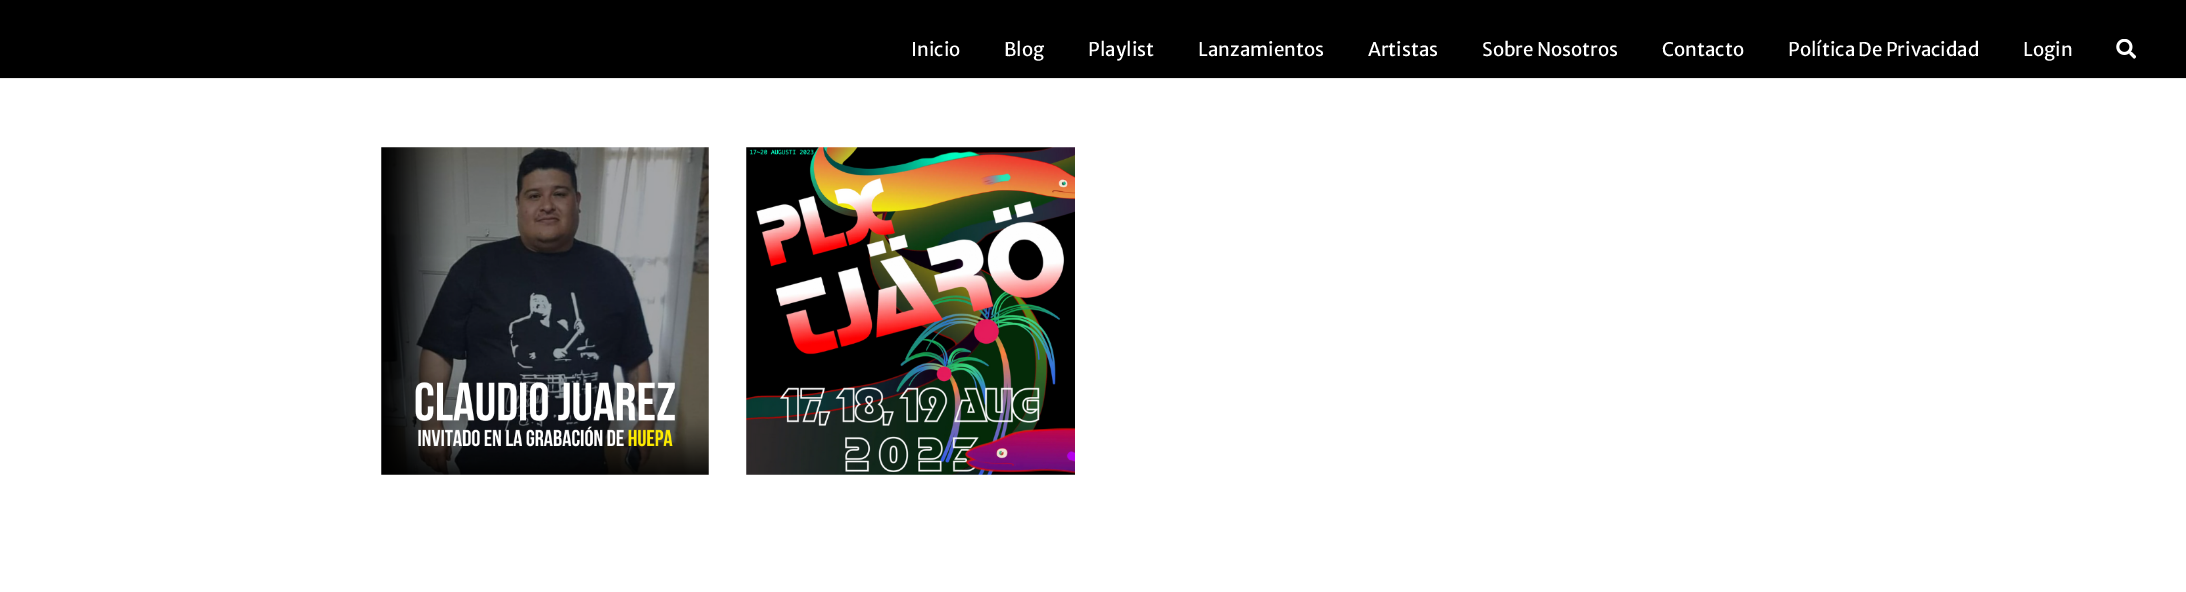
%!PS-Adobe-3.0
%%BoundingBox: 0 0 2186 592
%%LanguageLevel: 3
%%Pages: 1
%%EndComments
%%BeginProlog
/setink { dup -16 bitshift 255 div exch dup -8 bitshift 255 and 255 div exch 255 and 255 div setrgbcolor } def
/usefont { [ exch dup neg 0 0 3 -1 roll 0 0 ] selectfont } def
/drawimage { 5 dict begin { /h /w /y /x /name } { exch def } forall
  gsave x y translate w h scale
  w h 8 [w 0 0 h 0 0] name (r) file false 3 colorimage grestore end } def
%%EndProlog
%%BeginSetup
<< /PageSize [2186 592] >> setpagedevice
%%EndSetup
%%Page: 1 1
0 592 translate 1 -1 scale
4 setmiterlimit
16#FFFFFF setink
0 0 2186 592 rectfill
16#000000 setink
0 0 2186 78 rectfill
16#EAEAEA setink
0 78 2186 1 rectfill
/MerriweatherSans-Regular 18.75 usefont
16#FFFFFF setink
[
    [(Inicio) 911 56]
    [(Blog) 1004 56]
    [(Playlist) 1088 56]
    [(Lanzamientos) 1198 56]
    [(Artistas) 1368 56]
    [(Sobre Nosotros) 1482 56]
    [(Contacto) 1662 56]
    [(Política De Privacidad) 1788 56]
    [(Login) 2023 56]
] { aload pop moveto show } forall
(img1.raw) 2116 39 20 20 drawimage
(img2.raw) 381 147 328 328 drawimage
(img3.raw) 746 147 329 328 drawimage
showpage
%%EOF
